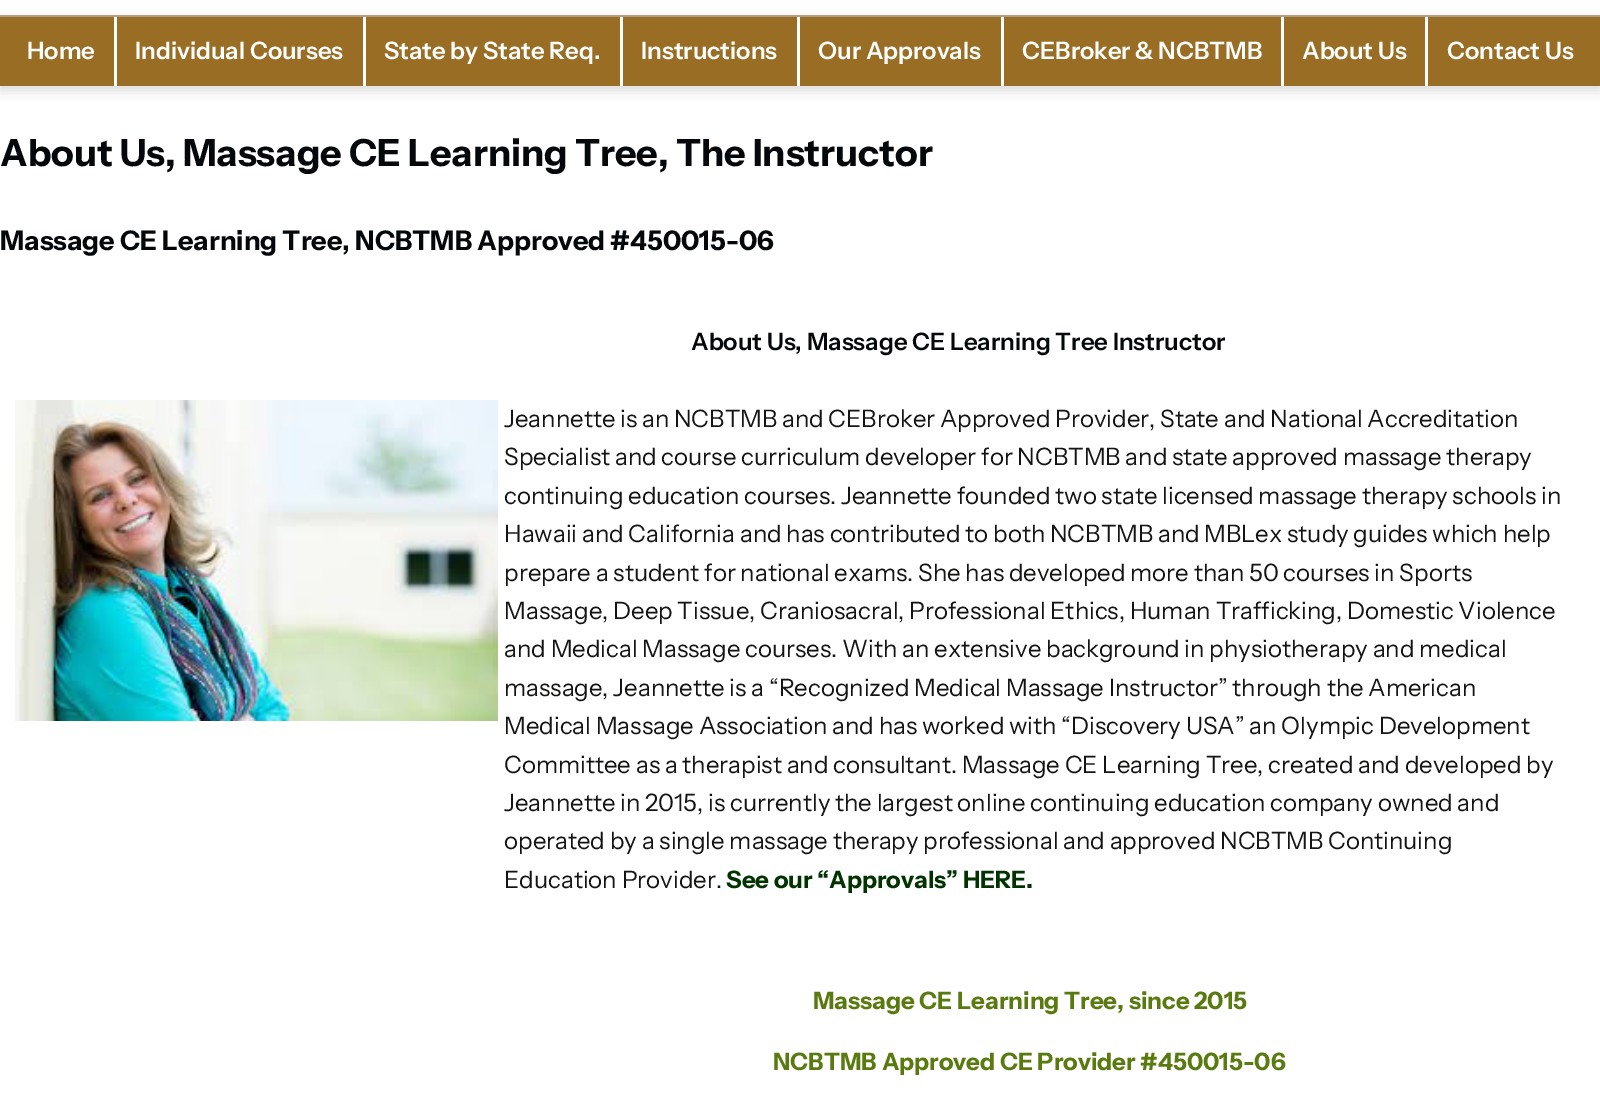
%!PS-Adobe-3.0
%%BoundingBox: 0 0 1600 1104
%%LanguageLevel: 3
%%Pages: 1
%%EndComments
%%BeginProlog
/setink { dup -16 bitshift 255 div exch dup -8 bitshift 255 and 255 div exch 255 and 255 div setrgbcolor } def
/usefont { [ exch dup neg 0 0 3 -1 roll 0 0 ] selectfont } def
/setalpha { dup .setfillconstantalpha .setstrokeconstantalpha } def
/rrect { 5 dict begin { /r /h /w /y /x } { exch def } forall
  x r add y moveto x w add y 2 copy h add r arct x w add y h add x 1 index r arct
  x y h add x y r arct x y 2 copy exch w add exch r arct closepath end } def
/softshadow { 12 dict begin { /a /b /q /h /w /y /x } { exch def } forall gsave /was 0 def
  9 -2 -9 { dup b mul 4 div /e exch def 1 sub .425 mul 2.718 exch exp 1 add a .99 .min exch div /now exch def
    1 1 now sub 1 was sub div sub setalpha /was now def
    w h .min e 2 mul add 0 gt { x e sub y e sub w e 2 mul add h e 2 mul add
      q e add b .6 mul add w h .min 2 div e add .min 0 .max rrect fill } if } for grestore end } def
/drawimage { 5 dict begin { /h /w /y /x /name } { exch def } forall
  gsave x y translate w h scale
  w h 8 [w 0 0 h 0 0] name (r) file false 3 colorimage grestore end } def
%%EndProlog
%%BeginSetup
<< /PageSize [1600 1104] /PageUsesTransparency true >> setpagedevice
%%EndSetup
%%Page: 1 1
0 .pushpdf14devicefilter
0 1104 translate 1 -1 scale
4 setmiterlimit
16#FFFFFF setink
0 0 1600 1104 rectfill
16#000000 setink
0 20 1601 70 0 6 0.15 softshadow
16#996E24 setink
0 17 1600 69 rectfill
16#B19E7E setink
0 15 1600 2 rectfill
/InstrumentSans-SemiBold 24 usefont
16#FFFFFF setink
27 59 moveto (Home) show
114 17 3 69 rectfill
135 59 moveto (Individual Courses) show
363 17 3 69 rectfill
384 59 moveto (State by State Req.) show
620 17 3 69 rectfill
641 59 moveto (Instructions) show
797 17 3 69 rectfill
818 59 moveto (Our Approvals) show
1001 17 3 69 rectfill
1022 59 moveto (CEBroker & NCBTMB) show
1281 17 3 69 rectfill
1302 59 moveto (About Us) show
1425 17 3 69 rectfill
1447 59 moveto (Contact Us) show
/InstrumentSans-Bold 37.5 usefont
16#04080A setink
0 166 moveto (About Us, Massage CE Learning Tree, The Instructor) show
/InstrumentSans-Bold 27 usefont
0 250 moveto (Massage CE Learning Tree, NCBTMB Approved #450015-06) show
/InstrumentSans-SemiBold 24 usefont
691 350 moveto (About Us, Massage CE Learning Tree Instructor) show
(img1.raw) 15 400 483 321 drawimage
/InstrumentSans-Regular 24 usefont
16#141412 setink
[
    [(Jeannette is an NCBTMB and CEBroker Approved Provider, State and National Accreditation) 504 427]
    [(Specialist and course curriculum developer for NCBTMB and state approved massage therapy) 504 465]
    [(continuing education courses. Jeannette founded two state licensed massage therapy schools in) 504 504]
    [(Hawaii and California and has contributed to both NCBTMB and MBLex study guides which help) 504 542]
    [(prepare a student for national exams. She has developed more than 50 courses in Sports) 504 581]
    [(Massage, Deep Tissue, Craniosacral, Professional Ethics, Human Trafficking, Domestic Violence) 504 619]
    [(and Medical Massage courses. With an extensive background in physiotherapy and medical) 504 657]
    [(massage, Jeannette is a “Recognized Medical Massage Instructor” through the American) 504 696]
    [(Medical Massage Association and has worked with “Discovery USA” an Olympic Development) 504 734]
    [(Committee as a therapist and consultant. Massage CE Learning Tree, created and developed by) 504 773]
    [(Jeannette in 2015, is currently the largest online continuing education company owned and) 504 811]
    [(operated by a single massage therapy professional and approved NCBTMB Continuing) 504 849]
    [(Education Provider.) 504 888]
] { aload pop moveto show } forall
/InstrumentSans-Bold 24 usefont
16#003300 setink
726 888 moveto (See our “Approvals” HERE.) show
16#597A0F setink
813 1009 moveto (Massage CE Learning Tree, since 2015) show
773 1070 moveto (NCBTMB Approved CE Provider #450015-06) show
.poppdf14devicefilter showpage
%%EOF
